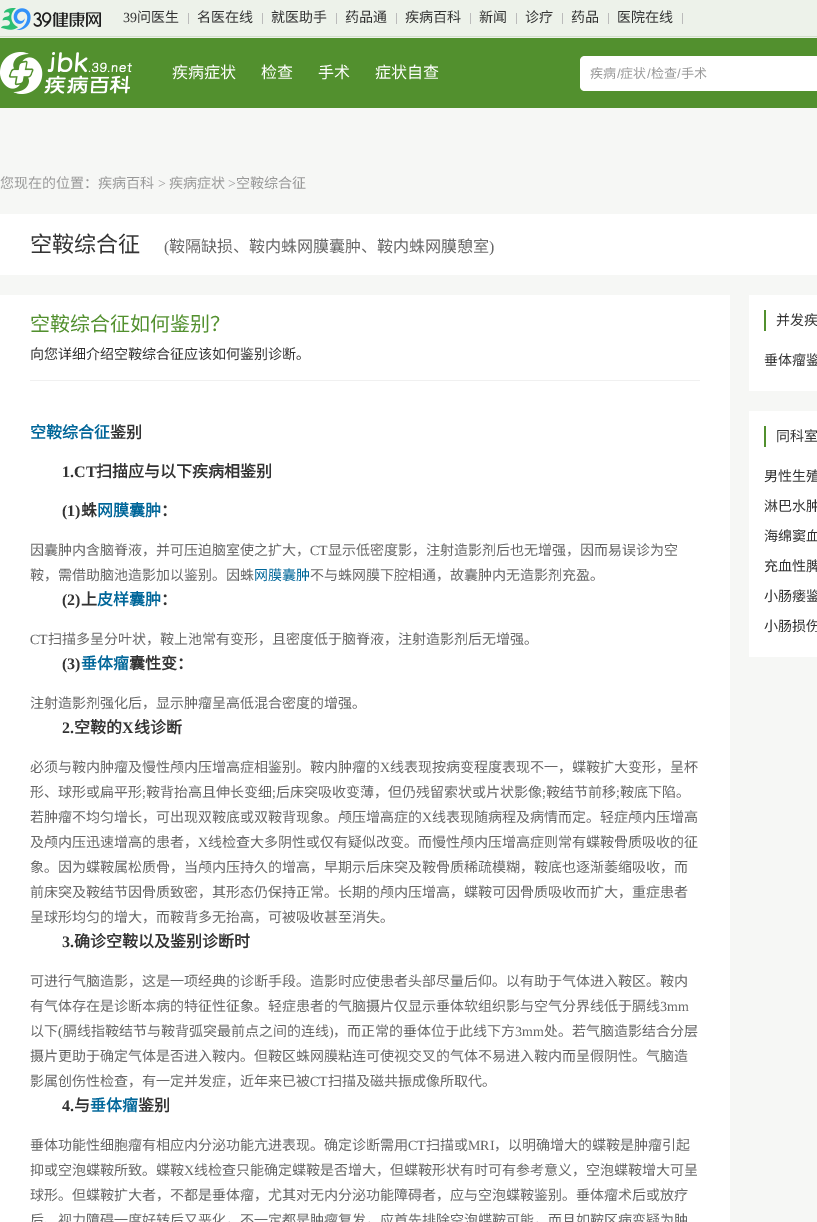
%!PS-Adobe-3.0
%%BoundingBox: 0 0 817 1222
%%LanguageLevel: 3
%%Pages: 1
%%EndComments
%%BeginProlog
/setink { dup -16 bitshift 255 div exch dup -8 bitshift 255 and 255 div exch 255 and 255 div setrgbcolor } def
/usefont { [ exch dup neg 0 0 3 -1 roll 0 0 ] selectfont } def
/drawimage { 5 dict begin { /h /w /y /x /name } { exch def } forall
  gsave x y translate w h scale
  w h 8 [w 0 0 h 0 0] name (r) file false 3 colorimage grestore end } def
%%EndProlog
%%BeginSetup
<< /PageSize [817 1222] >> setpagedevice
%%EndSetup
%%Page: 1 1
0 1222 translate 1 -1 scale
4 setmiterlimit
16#F6F7F5 setink
0 0 817 1222 rectfill
(img1.raw) 0 0 817 38 drawimage
(img2.raw) 1 8 100 22 drawimage
16#BBBBBB setink
188 13 1 11 rectfill
/LiberationSerif-Regular 14 usefont
16#333333 setink
123 22 moveto (39) show
/NotoSansCJKSC-Regular 14 usefont
137 22 moveto (问医生) show
16#BBBBBB setink
262 13 1 11 rectfill
16#333333 setink
197 22 moveto (名医在线) show
16#BBBBBB setink
336 13 1 11 rectfill
16#333333 setink
271 22 moveto (就医助手) show
16#BBBBBB setink
396 13 1 11 rectfill
16#333333 setink
345 22 moveto (药品通) show
16#BBBBBB setink
470 13 1 11 rectfill
16#333333 setink
405 22 moveto (疾病百科) show
16#BBBBBB setink
516 13 1 11 rectfill
16#333333 setink
479 22 moveto (新闻) show
16#BBBBBB setink
562 13 1 11 rectfill
16#333333 setink
525 22 moveto (诊疗) show
16#BBBBBB setink
608 13 1 11 rectfill
16#333333 setink
571 22 moveto (药品) show
16#BBBBBB setink
682 13 1 11 rectfill
16#333333 setink
617 22 moveto (医院在线) show
16#52902E setink
0 38 817 70 rectfill
(img3.raw) 0 52 132 42 drawimage
/NotoSansCJKSC-Regular 16 usefont
16#FFFFFF setink
[
    [(疾病症状) 172 78]
    [(检查) 261 78]
    [(手术) 318 78]
    [(症状自查) 375 78]
] { aload pop moveto show } forall
585 56 moveto 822 56 lineto 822 91 lineto 585 91 lineto 582 91 580 89 580 86 curveto 580 61 lineto 580 58 582 56 585 56 curveto closepath fill
/NotoSansCJKSC-Regular 13 usefont
16#999999 setink
590 78 moveto (疾病) show
/LiberationSans-Regular 13 usefont
617 78 moveto (/) show
/NotoSansCJKSC-Regular 13 usefont
620 78 moveto (症状) show
/LiberationSans-Regular 13 usefont
647 78 moveto (/) show
/NotoSansCJKSC-Regular 13 usefont
651 78 moveto (检查) show
/LiberationSans-Regular 13 usefont
677 78 moveto (/) show
/NotoSansCJKSC-Regular 13 usefont
681 78 moveto (手术) show
/NotoSansCJKSC-Regular 14 usefont
0 188 moveto (您现在的位置：疾病百科) show
/LiberationSerif-Regular 14 usefont
158 188 moveto (>) show
/NotoSansCJKSC-Regular 14 usefont
169 188 moveto (疾病症状) show
/LiberationSerif-Regular 14 usefont
228 188 moveto (>) show
/NotoSansCJKSC-Regular 14 usefont
236 188 moveto (空鞍综合征) show
16#FFFFFF setink
0 214 817 61 rectfill
/NotoSansCJKSC-Regular 22 usefont
16#333333 setink
30 252 moveto (空鞍综合征) show
/LiberationSerif-Regular 16 usefont
16#666666 setink
164 252 moveto (\() show
/NotoSansCJKSC-Regular 16 usefont
169 252 moveto (鞍隔缺损、鞍内蛛网膜囊肿、鞍内蛛网膜憩室) show
/LiberationSerif-Regular 16 usefont
489 252 moveto (\)) show
16#FFFFFF setink
0 295 730 927 rectfill
16#F0F0F0 setink
30 380 670 1 rectfill
/NotoSansCJKSC-Regular 20 usefont
16#52902E setink
30 331 moveto (空鞍综合征如何鉴别？) show
/NotoSansCJKSC-Regular 14 usefont
16#333333 setink
30 359 moveto (向您详细介绍空鞍综合征应该如何鉴别诊断。) show
/NotoSansCJKSC-Bold 16 usefont
16#006699 setink
30 438 moveto (空鞍综合征) show
16#333333 setink
110 438 moveto (鉴别) show
/LiberationSerif-Bold 16 usefont
62 477 moveto (1.CT) show
/NotoSansCJKSC-Bold 16 usefont
96 477 moveto (扫描应与以下疾病相鉴别) show
/LiberationSerif-Bold 16 usefont
62 516 moveto (\(1\)) show
/NotoSansCJKSC-Bold 16 usefont
81 516 moveto (蛛) show
16#006699 setink
97 516 moveto (网膜囊肿) show
16#333333 setink
161 516 moveto (：) show
/NotoSansCJKSC-Regular 14 usefont
16#666666 setink
30 555 moveto (因囊肿内含脑脊液，并可压迫脑室使之扩大，) show
/LiberationSerif-Regular 14 usefont
310 555 moveto (CT) show
/NotoSansCJKSC-Regular 14 usefont
328 555 moveto (显示低密度影，注射造影剂后也无增强，因而易误诊为空) show
30 580 moveto (鞍，需借助脑池造影加以鉴别。因蛛) show
16#006699 setink
254 580 moveto (网膜囊肿) show
16#666666 setink
310 580 moveto (不与蛛网膜下腔相通，故囊肿内无造影剂充盈。) show
/LiberationSerif-Bold 16 usefont
16#333333 setink
62 605 moveto (\(2\)) show
/NotoSansCJKSC-Bold 16 usefont
81 605 moveto (上) show
16#006699 setink
97 605 moveto (皮样囊肿) show
16#333333 setink
161 605 moveto (：) show
/LiberationSerif-Regular 14 usefont
16#666666 setink
30 644 moveto (CT) show
/NotoSansCJKSC-Regular 14 usefont
48 644 moveto (扫描多呈分叶状，鞍上池常有变形，且密度低于脑脊液，注射造影剂后无增强。) show
/LiberationSerif-Bold 16 usefont
16#333333 setink
62 669 moveto (\(3\)) show
/NotoSansCJKSC-Bold 16 usefont
16#006699 setink
81 669 moveto (垂体瘤) show
16#333333 setink
129 669 moveto (囊性变：) show
/NotoSansCJKSC-Regular 14 usefont
16#666666 setink
30 708 moveto (注射造影剂强化后，显示肿瘤呈高低混合密度的增强。) show
/LiberationSerif-Bold 16 usefont
16#333333 setink
62 733 moveto (2.) show
/NotoSansCJKSC-Bold 16 usefont
74 733 moveto (空鞍的) show
/LiberationSerif-Bold 16 usefont
122 733 moveto (X) show
/NotoSansCJKSC-Bold 16 usefont
134 733 moveto (线诊断) show
/NotoSansCJKSC-Regular 14 usefont
16#666666 setink
30 772 moveto (必须与鞍内肿瘤及慢性颅内压增高症相鉴别。鞍内肿瘤的) show
/LiberationSerif-Regular 14 usefont
380 772 moveto (X) show
/NotoSansCJKSC-Regular 14 usefont
390 772 moveto (线表现按病变程度表现不一，蝶鞍扩大变形，呈杯) show
30 797 moveto (形、球形或扁平形) show
/LiberationSerif-Regular 14 usefont
142 797 moveto (;) show
/NotoSansCJKSC-Regular 14 usefont
146 797 moveto (鞍背抬高且伸长变细) show
/LiberationSerif-Regular 14 usefont
272 797 moveto (;) show
/NotoSansCJKSC-Regular 14 usefont
276 797 moveto (后床突吸收变薄，但仍残留索状或片状影像) show
/LiberationSerif-Regular 14 usefont
542 797 moveto (;) show
/NotoSansCJKSC-Regular 14 usefont
546 797 moveto (鞍结节前移) show
/LiberationSerif-Regular 14 usefont
616 797 moveto (;) show
/NotoSansCJKSC-Regular 14 usefont
620 797 moveto (鞍底下陷。) show
30 822 moveto (若肿瘤不均匀增长，可出现双鞍底或双鞍背现象。颅压增高症的) show
/LiberationSerif-Regular 14 usefont
422 822 moveto (X) show
/NotoSansCJKSC-Regular 14 usefont
432 822 moveto (线表现随病程及病情而定。轻症颅内压增高) show
30 847 moveto (及颅内压迅速增高的患者，) show
/LiberationSerif-Regular 14 usefont
198 847 moveto (X) show
/NotoSansCJKSC-Regular 14 usefont
[
    [(线检查大多阴性或仅有疑似改变。而慢性颅内压增高症则常有蝶鞍骨质吸收的征) 208 847]
    [(象。因为蝶鞍属松质骨，当颅内压持久的增高，早期示后床突及鞍骨质稀疏模糊，鞍底也逐渐萎缩吸收，而) 30 872]
    [(前床突及鞍结节因骨质致密，其形态仍保持正常。长期的颅内压增高，蝶鞍可因骨质吸收而扩大，重症患者) 30 897]
    [(呈球形均匀的增大，而鞍背多无抬高，可被吸收甚至消失。) 30 922]
] { aload pop moveto show } forall
/LiberationSerif-Bold 16 usefont
16#333333 setink
62 947 moveto (3.) show
/NotoSansCJKSC-Bold 16 usefont
74 947 moveto (确诊空鞍以及鉴别诊断时) show
/NotoSansCJKSC-Regular 14 usefont
16#666666 setink
30 986 moveto (可进行气脑造影，这是一项经典的诊断手段。造影时应使患者头部尽量后仰。以有助于气体进入鞍区。鞍内) show
30 1011 moveto (有气体存在是诊断本病的特征性征象。轻症患者的气脑摄片仅显示垂体软组织影与空气分界线低于膈线) show
/LiberationSerif-Regular 14 usefont
660 1011 moveto (3mm) show
/NotoSansCJKSC-Regular 14 usefont
30 1036 moveto (以下) show
/LiberationSerif-Regular 14 usefont
58 1036 moveto (\() show
/NotoSansCJKSC-Regular 14 usefont
63 1036 moveto (膈线指鞍结节与鞍背弧突最前点之间的连线) show
/LiberationSerif-Regular 14 usefont
329 1036 moveto (\)) show
/NotoSansCJKSC-Regular 14 usefont
333 1036 moveto (，而正常的垂体位于此线下方) show
/LiberationSerif-Regular 14 usefont
515 1036 moveto (3mm) show
/NotoSansCJKSC-Regular 14 usefont
[
    [(处。若气脑造影结合分层) 544 1036]
    [(摄片更助于确定气体是否进入鞍内。但鞍区蛛网膜粘连可使视交叉的气体不易进入鞍内而呈假阴性。气脑造) 30 1061]
    [(影属创伤性检查，有一定并发症，近年来已被) 30 1086]
] { aload pop moveto show } forall
/LiberationSerif-Regular 14 usefont
310 1086 moveto (CT) show
/NotoSansCJKSC-Regular 14 usefont
328 1086 moveto (扫描及磁共振成像所取代。) show
/LiberationSerif-Bold 16 usefont
16#333333 setink
62 1111 moveto (4.) show
/NotoSansCJKSC-Bold 16 usefont
74 1111 moveto (与) show
16#006699 setink
90 1111 moveto (垂体瘤) show
16#333333 setink
138 1111 moveto (鉴别) show
/NotoSansCJKSC-Regular 14 usefont
16#666666 setink
30 1150 moveto (垂体功能性细胞瘤有相应内分泌功能亢进表现。确定诊断需用) show
/LiberationSerif-Regular 14 usefont
408 1150 moveto (CT) show
/NotoSansCJKSC-Regular 14 usefont
426 1150 moveto (扫描或) show
/LiberationSerif-Regular 14 usefont
468 1150 moveto (MRI) show
/NotoSansCJKSC-Regular 14 usefont
494 1150 moveto (，以明确增大的蝶鞍是肿瘤引起) show
30 1175 moveto (抑或空泡蝶鞍所致。蝶鞍) show
/LiberationSerif-Regular 14 usefont
184 1175 moveto (X) show
/NotoSansCJKSC-Regular 14 usefont
[
    [(线检查只能确定蝶鞍是否增大，但蝶鞍形状有时可有参考意义，空泡蝶鞍增大可呈) 194 1175]
    [(球形。但蝶鞍扩大者，不都是垂体瘤，尤其对无内分泌功能障碍者，应与空泡蝶鞍鉴别。垂体瘤术后或放疗) 30 1200]
    [(后、视力障碍一度好转后又恶化，不一定都是肿瘤复发，应首先排除空泡蝶鞍可能，而且如鞍区病变疑为肿) 30 1225]
] { aload pop moveto show } forall
16#FFFFFF setink
749 295 68 96 rectfill
16#52902E setink
764 310 2 21 rectfill
16#333333 setink
776 325 moveto (并发疾) show
764 365 moveto (垂体瘤鉴) show
16#FFFFFF setink
749 411 68 246 rectfill
16#52902E setink
764 426 2 21 rectfill
16#333333 setink
[
    [(同科室) 776 441]
    [(男性生殖) 764 481]
    [(淋巴水肿) 764 511]
    [(海绵窦血) 764 541]
    [(充血性脾) 764 571]
    [(小肠瘘鉴) 764 601]
    [(小肠损伤) 764 631]
] { aload pop moveto show } forall
showpage
%%EOF
